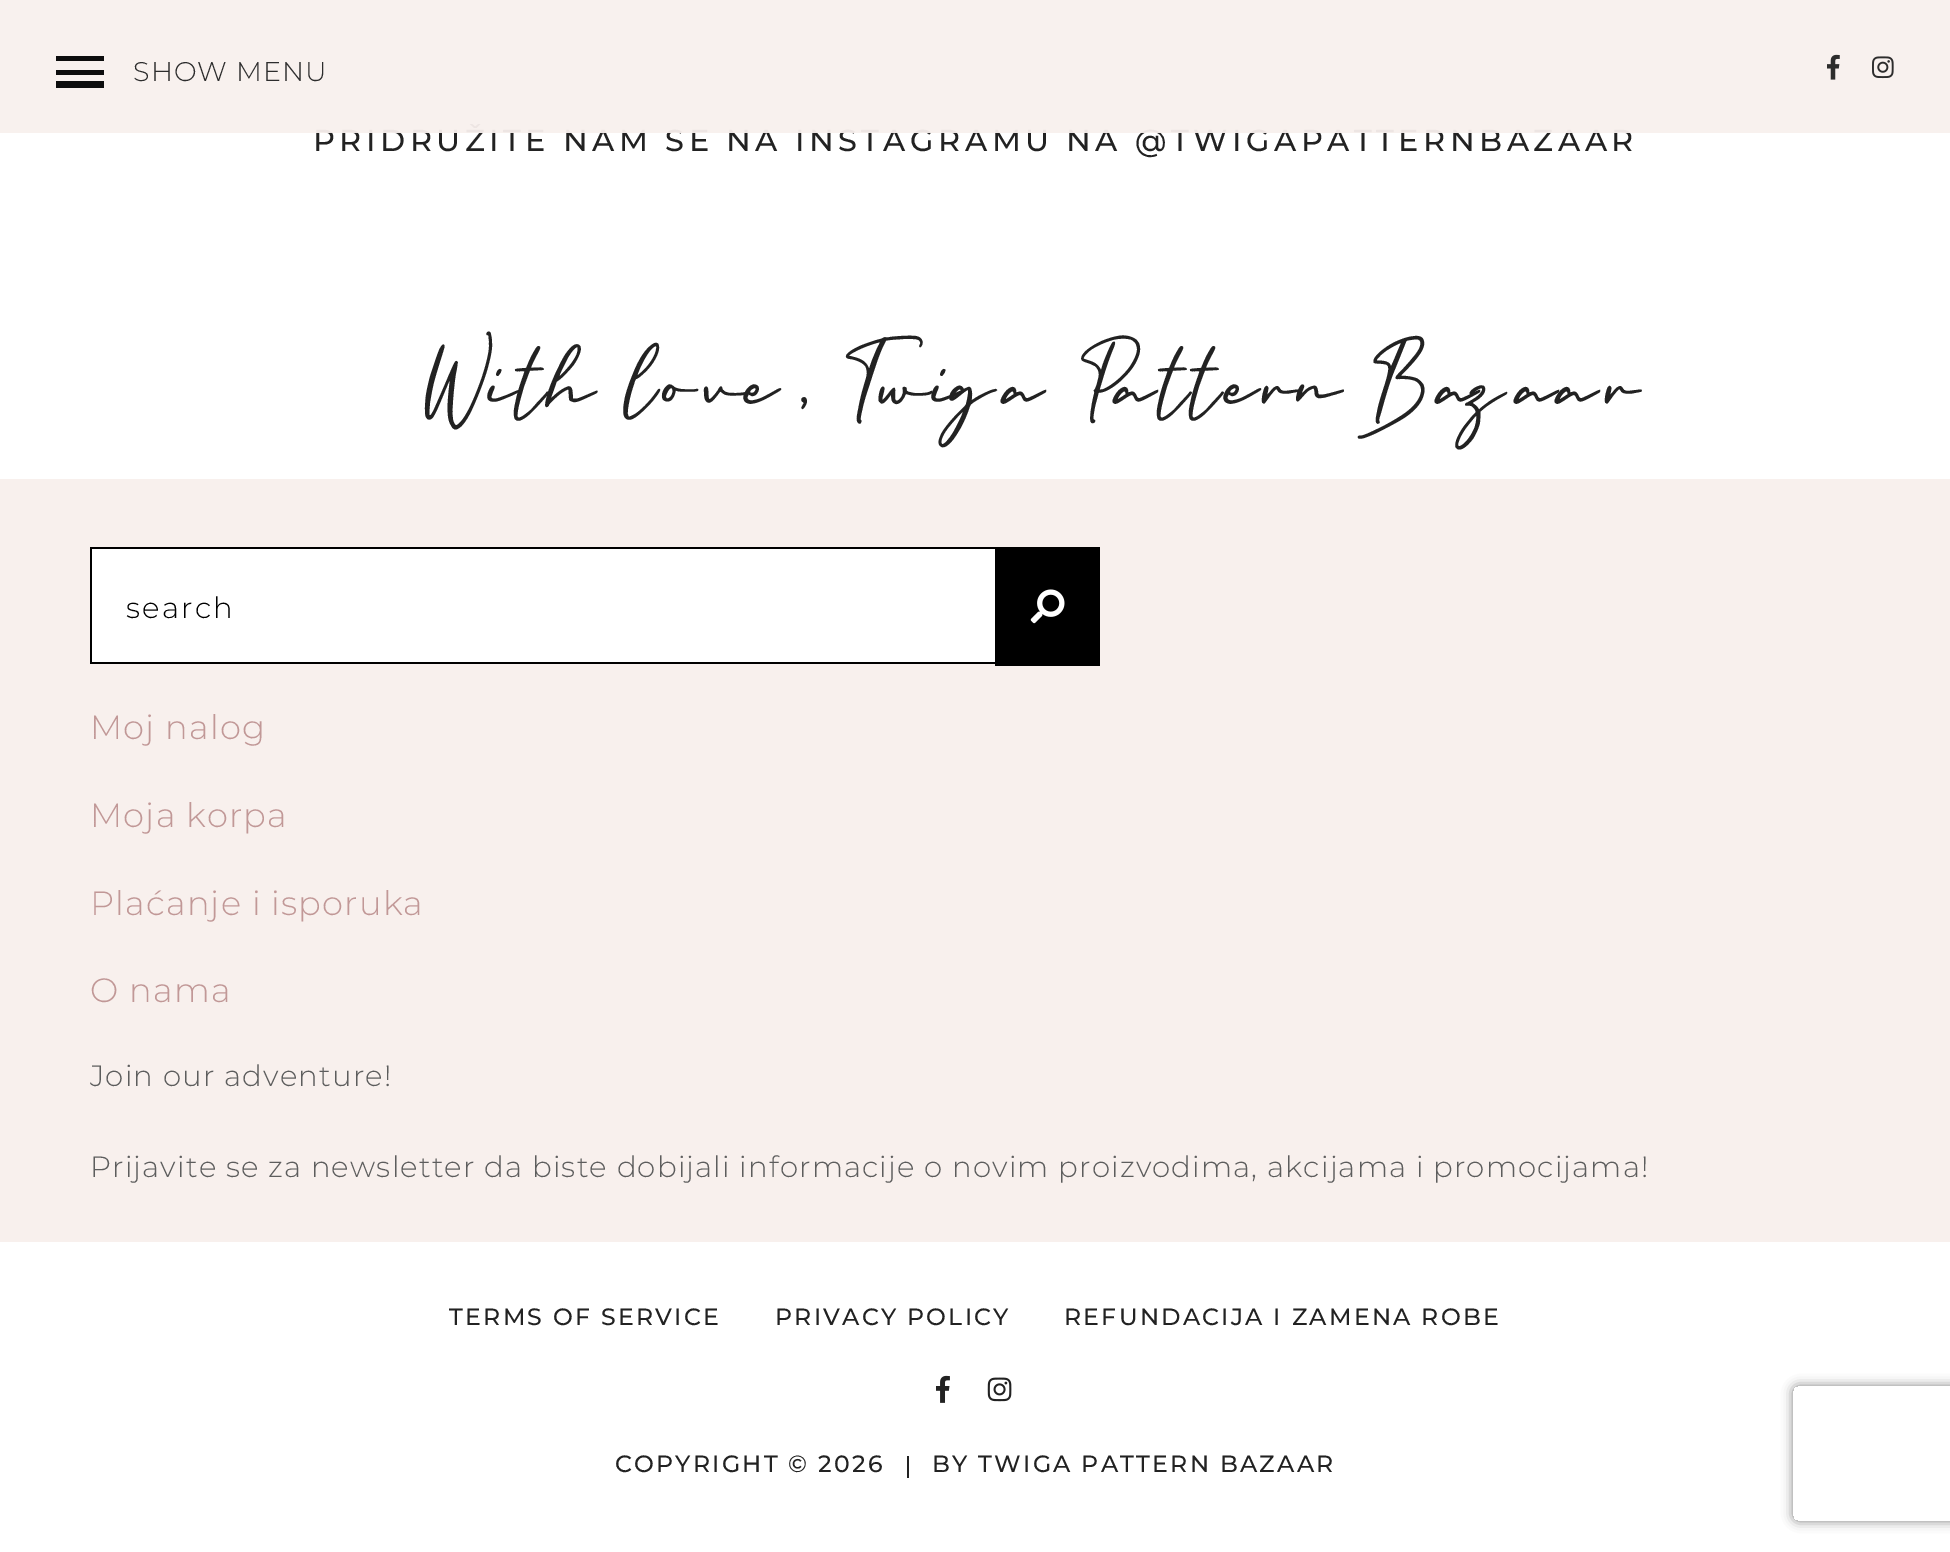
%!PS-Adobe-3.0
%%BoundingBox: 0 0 1950 1552
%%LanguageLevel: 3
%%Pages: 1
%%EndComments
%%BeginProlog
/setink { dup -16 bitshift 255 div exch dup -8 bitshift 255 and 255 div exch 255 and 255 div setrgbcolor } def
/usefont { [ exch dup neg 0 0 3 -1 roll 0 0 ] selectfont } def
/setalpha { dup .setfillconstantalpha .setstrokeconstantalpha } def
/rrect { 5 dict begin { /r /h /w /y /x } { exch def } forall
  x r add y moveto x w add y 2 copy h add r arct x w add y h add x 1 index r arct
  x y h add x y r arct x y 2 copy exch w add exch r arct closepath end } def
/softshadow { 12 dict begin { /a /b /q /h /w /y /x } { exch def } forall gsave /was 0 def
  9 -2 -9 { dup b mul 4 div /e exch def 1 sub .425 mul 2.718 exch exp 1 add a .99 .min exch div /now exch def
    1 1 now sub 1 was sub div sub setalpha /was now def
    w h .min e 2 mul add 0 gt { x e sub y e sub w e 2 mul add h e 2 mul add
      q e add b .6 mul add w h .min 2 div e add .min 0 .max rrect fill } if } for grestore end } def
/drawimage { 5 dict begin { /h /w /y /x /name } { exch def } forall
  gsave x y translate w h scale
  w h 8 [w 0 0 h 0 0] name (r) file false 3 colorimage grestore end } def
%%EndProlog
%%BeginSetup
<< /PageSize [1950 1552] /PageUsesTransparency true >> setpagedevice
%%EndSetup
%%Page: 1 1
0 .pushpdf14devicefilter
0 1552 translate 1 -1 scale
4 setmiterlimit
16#FFFFFF setink
0 0 1950 1552 rectfill
/Montserrat-Medium 30.4 usefont
16#222222 setink
313 151 moveto 4.5 0 (PRIDRUŽITE NAM SE NA INSTAGRAMU NA @TWIGAPATTERNBAZAAR) ashow
0.95 setalpha
[
    [0 0 1950 133 16#F8F0ED]
] { aload pop setink rectfill } forall
1 setalpha
[
    [56 56 48 5 16#0D0D0D]
    [56 70 48 5 16#0D0D0D]
    [56 81 48 7 16#0D0D0D]
] { aload pop setink rectfill } forall
/Montserrat-Light 27 usefont
16#2D2D2D setink
133 81 moveto 1.12 0 (SHOW MENU) ashow
(img1.raw) 1827 54 13 26 drawimage
(img2.raw) 1872 56 22 23 drawimage
/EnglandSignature-Regular 112.5 usefont
16#222222 setink
407 404 moveto 4.5 0 (With love, Twiga Pattern Bazaar) ashow
[
    [0 479 1950 763 16#F8F0ED]
    [92 549 903 113 16#FFFFFF]
    [90 547 905 2 16#000000]
    [90 662 905 2 16#000000]
    [90 547 2 117 16#000000]
] { aload pop setink rectfill } forall
/Montserrat-Light 29.25 usefont
126 618 moveto 2.25 0 (search) ashow
995 547 105 119 rectfill
(img3.raw) 1030 589 35 35 drawimage
/Montserrat-Light 33.75 usefont
16#C19897 setink
90 739 moveto 1.12 0 (Moj nalog) ashow
90 827 moveto 1.12 0 (Moja korpa) ashow
90 915 moveto 1.12 0 (Plaćanje i isporuka) ashow
90 1002 moveto 1.12 0 (O nama) ashow
/Montserrat-Light 29.25 usefont
16#5D5D5D setink
90 1086 moveto 1.12 0 (Join our adventure!) ashow
90 1177 moveto 1.12 0 (Prijavite se za newsletter da biste dobijali informacije o novim proizvodima, akcijama i promocijama!) ashow
/Montserrat-Medium 23.6 usefont
16#222222 setink
449 1325 moveto 2.25 0 (TERMS OF SERVICE) ashow
775 1325 moveto 2.25 0 (PRIVACY POLICY) ashow
1064 1325 moveto 2.25 0 (REFUNDACIJA I ZAMENA ROBE) ashow
(img4.raw) 936 1375 14 28 drawimage
(img5.raw) 987 1377 25 25 drawimage
615 1472 moveto 2.25 0 (COPYRIGHT © 2026) ashow
907 1456 2 22 rectfill
932 1472 moveto 2.25 0 (BY TWIGA PATTERN BAZAAR) ashow
gsave
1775 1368 moveto 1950 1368 lineto 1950 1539 lineto 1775 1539 lineto closepath 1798 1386 moveto 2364 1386 lineto 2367 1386 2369 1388 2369 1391 curveto 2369 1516 lineto 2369 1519 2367 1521 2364 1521 curveto 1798 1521 lineto 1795 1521 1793 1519 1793 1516 curveto 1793 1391 lineto 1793 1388 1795 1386 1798 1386 curveto closepath eoclip newpath
16#808080 setink
1793 1386 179 135 5 5.5 1 softshadow
grestore
.poppdf14devicefilter showpage
%%EOF
